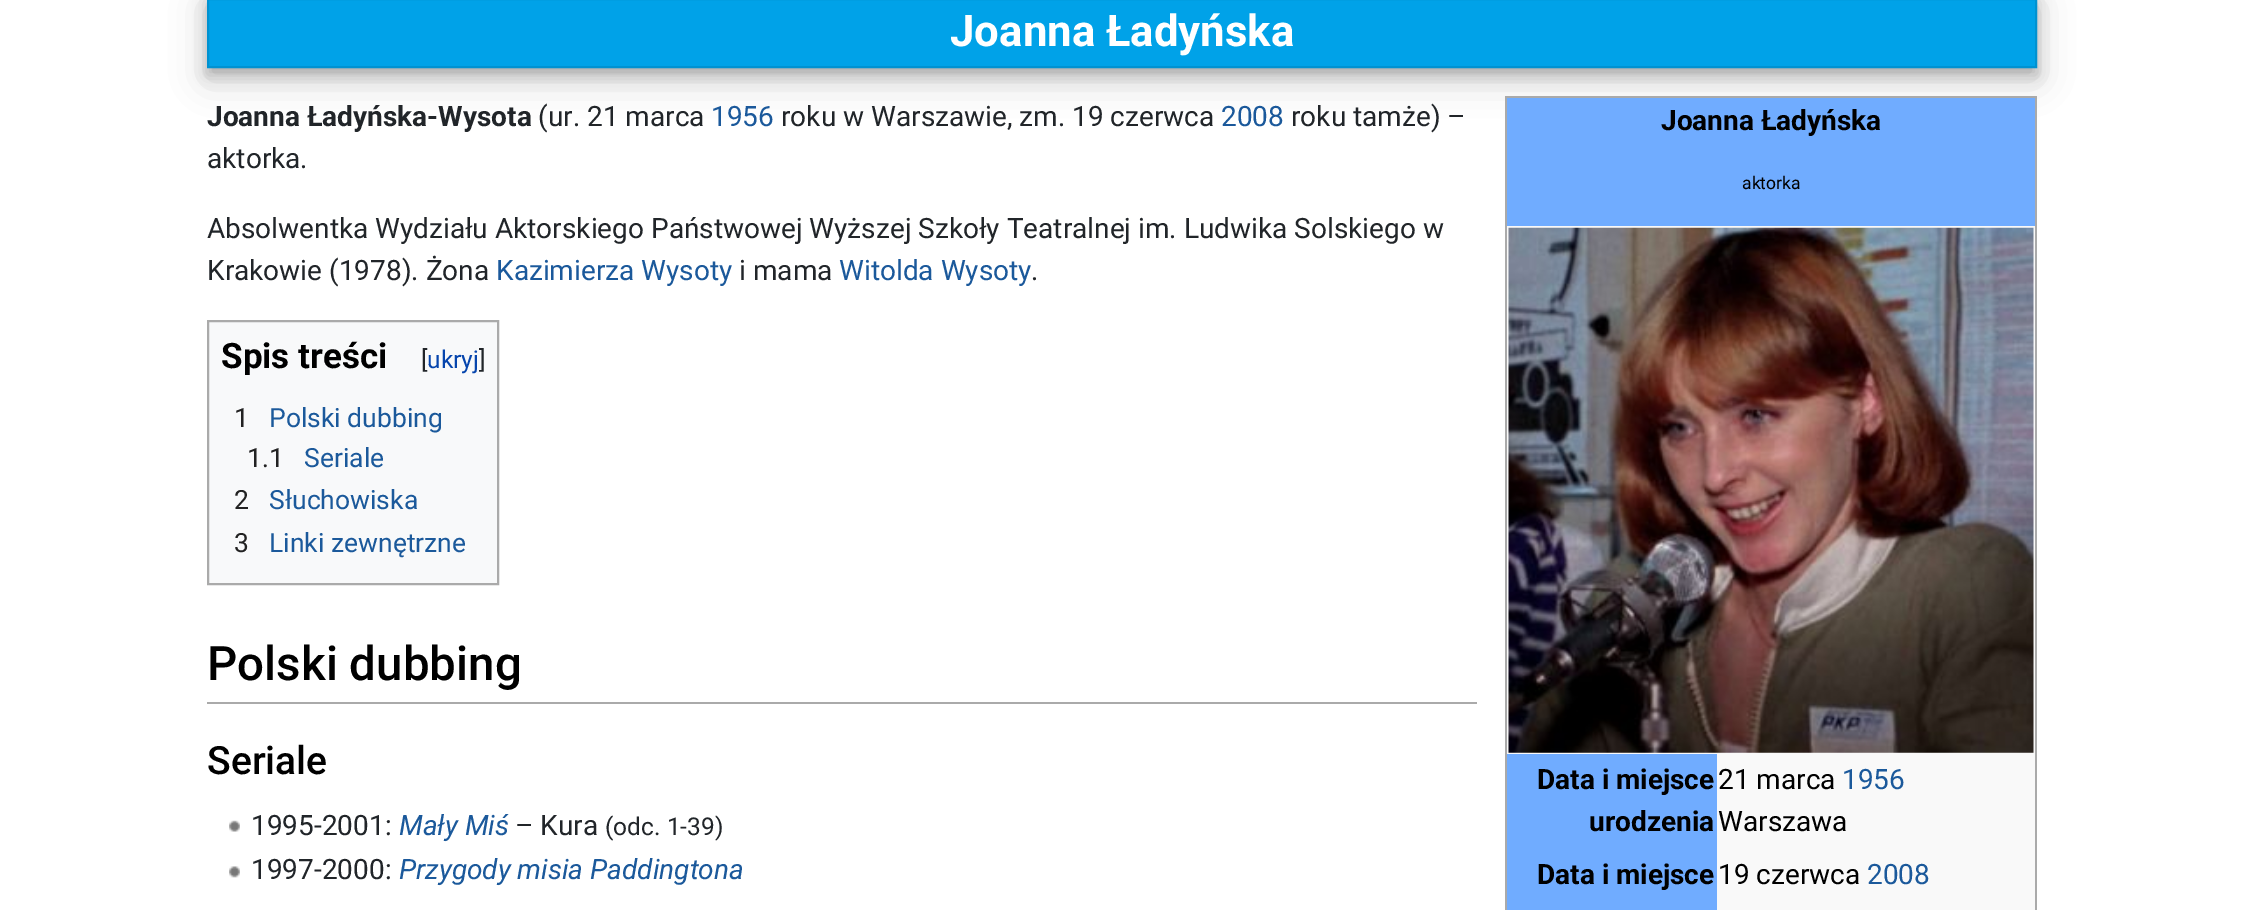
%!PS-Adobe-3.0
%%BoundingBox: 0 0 2243 910
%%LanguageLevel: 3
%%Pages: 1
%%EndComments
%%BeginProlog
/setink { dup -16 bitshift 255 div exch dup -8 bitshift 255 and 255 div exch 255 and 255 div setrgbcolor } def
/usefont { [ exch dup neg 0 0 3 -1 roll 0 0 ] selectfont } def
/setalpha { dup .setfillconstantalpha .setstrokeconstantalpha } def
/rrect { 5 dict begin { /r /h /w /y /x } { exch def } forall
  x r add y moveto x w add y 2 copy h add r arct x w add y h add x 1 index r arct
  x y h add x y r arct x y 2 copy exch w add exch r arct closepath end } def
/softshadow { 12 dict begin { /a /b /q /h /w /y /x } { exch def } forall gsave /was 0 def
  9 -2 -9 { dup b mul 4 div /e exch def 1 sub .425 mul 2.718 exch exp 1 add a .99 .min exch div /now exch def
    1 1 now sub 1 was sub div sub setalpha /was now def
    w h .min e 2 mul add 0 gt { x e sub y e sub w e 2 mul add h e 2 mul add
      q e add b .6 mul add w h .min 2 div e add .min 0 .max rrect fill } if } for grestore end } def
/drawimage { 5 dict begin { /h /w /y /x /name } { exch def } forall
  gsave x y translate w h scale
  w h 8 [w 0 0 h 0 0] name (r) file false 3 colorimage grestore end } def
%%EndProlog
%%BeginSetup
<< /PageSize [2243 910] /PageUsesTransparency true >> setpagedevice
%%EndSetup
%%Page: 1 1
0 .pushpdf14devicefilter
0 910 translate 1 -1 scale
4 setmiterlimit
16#FFFFFF setink
0 0 2243 910 rectfill
16#000000 setink
207 5 1830 74 0 17.5 0.19 softshadow
207 2 1830 73 0 7 0.2 softshadow
16#00A2E8 setink
208 -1 moveto 2036 -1 lineto 2036 67 lineto 208 67 lineto closepath gsave fill grestore
16#0092D1 setink
2 setlinewidth
stroke
/Roboto-Bold 43.75 usefont
16#FFFFFF setink
950 46 moveto (Joanna Ładyńska) show
/Roboto-Bold 28 usefont
16#212529 setink
207 126 moveto (Joanna Ładyńska-Wysota) show
/Roboto-Regular 28 usefont
538 126 moveto (\(ur. 21 marca) show
16#1B599B setink
711 126 moveto (1956) show
16#212529 setink
781 126 moveto (roku w Warszawie, zm. 19 czerwca) show
16#1B599B setink
1221 126 moveto (2008) show
16#212529 setink
1291 126 moveto (roku tamże\) –) show
207 168 moveto (aktorka.) show
[
    [1507 226 528 684 16#F9F9F9]
    [1505 96 532 2 16#AAAAAA]
    [2035 96 2 814 16#AAAAAA]
    [1505 96 2 814 16#AAAAAA]
    [1507 98 528 128 16#70ACFF]
] { aload pop setink rectfill } forall
/Roboto-Bold 28 usefont
16#000000 setink
1661 130 moveto (Joanna Ładyńska) show
/Roboto-Regular 17.5 usefont
1742 189 moveto (aktorka) show
(img1.raw) 1508 227 526 526 drawimage
16#70ACFF setink
1507 754 210 156 rectfill
/Roboto-Bold 28 usefont
16#000000 setink
1537 789 moveto (Data i miejsce) show
1589 831 moveto (urodzenia) show
/Roboto-Regular 28 usefont
1718 789 moveto (21 marca) show
16#1B599B setink
1842 789 moveto (1956) show
16#000000 setink
1718 831 moveto (Warszawa) show
/Roboto-Bold 28 usefont
1537 884 moveto (Data i miejsce) show
/Roboto-Regular 28 usefont
1718 884 moveto (19 czerwca) show
16#1B599B setink
1867 884 moveto (2008) show
16#212529 setink
207 238 moveto (Absolwentka Wydziału Aktorskiego Państwowej Wyższej Szkoły Teatralnej im. Ludwika Solskiego w) show
207 280 moveto (Krakowie \(1978\). Żona) show
16#1B599B setink
496 280 moveto (Kazimierza Wysoty) show
16#212529 setink
739 280 moveto (i mama) show
16#1B599B setink
839 280 moveto (Witolda Wysoty) show
16#212529 setink
1031 280 moveto (.) show
16#F8F9FA setink
208 321 moveto 498 321 lineto 498 584 lineto 208 584 lineto closepath gsave fill grestore
16#AAAAAA setink
stroke
/Roboto-Bold 35 usefont
16#000000 setink
221 368 moveto (Spis treści) show
/Roboto-Regular 24.5 usefont
16#212529 setink
421 368 moveto ([) show
16#0645AD setink
427 368 moveto (ukryj) show
16#212529 setink
479 368 moveto (]) show
/Roboto-Regular 26.5 usefont
16#222222 setink
234 427 moveto (1) show
16#1B599B setink
269 427 moveto (Polski dubbing) show
16#222222 setink
247 467 moveto (1.1) show
16#1B599B setink
304 467 moveto (Seriale) show
16#222222 setink
234 509 moveto (2) show
16#1B599B setink
269 509 moveto (Słuchowiska) show
16#222222 setink
234 552 moveto (3) show
16#1B599B setink
269 552 moveto (Linki zewnętrzne) show
16#AAAAAA setink
207 702 1270 2 rectfill
/Roboto-Medium 47.5 usefont
16#000000 setink
207 680 moveto (Polski dubbing) show
/Roboto-Medium 39 usefont
207 774 moveto (Seriale) show
(img2.raw) 229 820 11 12 drawimage
/Roboto-Regular 28 usefont
16#212529 setink
251 835 moveto (1995-2001:) show
/Roboto-Italic 28 usefont
16#1B599B setink
399 835 moveto (Mały Miś) show
/Roboto-Regular 28 usefont
16#212529 setink
515 835 moveto (– Kura) show
/Roboto-Regular 24.5 usefont
605 835 moveto (\(odc. 1-39\)) show
(img3.raw) 229 866 11 12 drawimage
/Roboto-Regular 28 usefont
251 879 moveto (1997-2000:) show
/Roboto-Italic 28 usefont
16#1B599B setink
399 879 moveto (Przygody misia Paddingtona) show
.poppdf14devicefilter showpage
%%EOF
